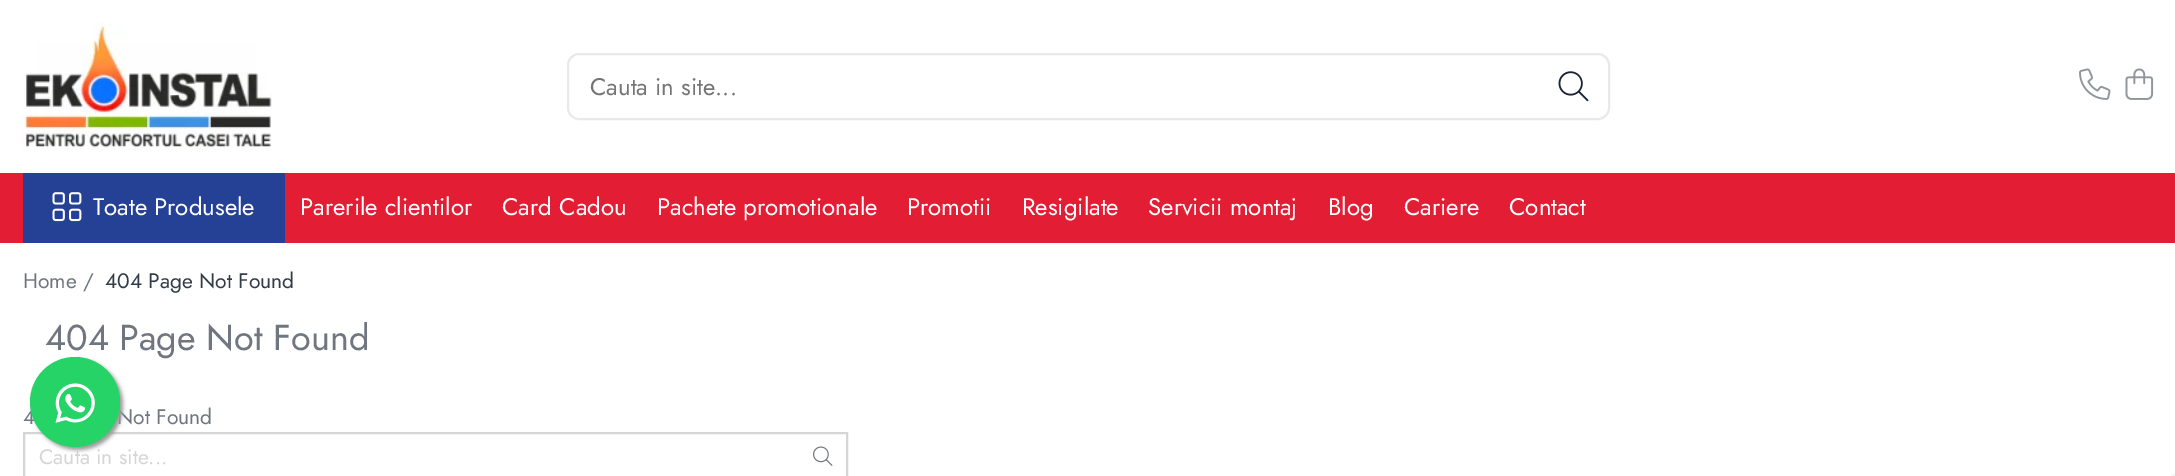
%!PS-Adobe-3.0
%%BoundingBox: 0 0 2175 476
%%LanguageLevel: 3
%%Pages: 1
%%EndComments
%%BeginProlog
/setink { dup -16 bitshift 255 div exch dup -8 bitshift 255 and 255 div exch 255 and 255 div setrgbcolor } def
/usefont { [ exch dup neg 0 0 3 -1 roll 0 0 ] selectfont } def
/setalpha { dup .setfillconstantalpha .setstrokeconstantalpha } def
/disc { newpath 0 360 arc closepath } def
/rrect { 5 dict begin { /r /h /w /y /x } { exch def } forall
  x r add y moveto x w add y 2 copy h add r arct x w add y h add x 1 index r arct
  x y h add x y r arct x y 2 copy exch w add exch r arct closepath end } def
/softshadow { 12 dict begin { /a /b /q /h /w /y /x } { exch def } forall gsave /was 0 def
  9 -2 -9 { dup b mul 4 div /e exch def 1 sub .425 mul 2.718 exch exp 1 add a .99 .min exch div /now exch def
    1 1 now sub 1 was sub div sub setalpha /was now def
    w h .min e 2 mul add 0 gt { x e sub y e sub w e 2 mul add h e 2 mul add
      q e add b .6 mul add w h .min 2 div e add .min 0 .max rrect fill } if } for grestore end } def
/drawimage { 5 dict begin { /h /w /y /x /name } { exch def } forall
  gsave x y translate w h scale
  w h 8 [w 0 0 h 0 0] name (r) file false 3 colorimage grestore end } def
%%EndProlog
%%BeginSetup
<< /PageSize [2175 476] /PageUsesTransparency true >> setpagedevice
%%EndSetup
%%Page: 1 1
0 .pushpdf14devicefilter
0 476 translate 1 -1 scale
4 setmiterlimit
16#FFFFFF setink
0 0 2175 476 rectfill
(img1.raw) 22 22 250 128 drawimage
16#E8E9EB setink
2 setlinewidth
568 54 1041 65 11 rrect stroke
/Jost-Regular 24 usefont
16#757575 setink
590 95 moveto (Cauta in site...) show
(img2.raw) 1558 71 31 31 drawimage
(img3.raw) 2079 68 32 32 drawimage
(img4.raw) 2125 68 29 32 drawimage
16#E31E34 setink
0 173 2175 70 rectfill
16#244196 setink
23 173 262 70 rectfill
(img5.raw) 52 192 30 30 drawimage
16#FFFFFF setink
[
    [(Toate Produsele) 93 215]
    [(Parerile clientilor) 300 215]
    [(Card Cadou) 502 215]
    [(Pachete promotionale) 657 215]
    [(Promotii) 907 215]
    [(Resigilate) 1022 215]
    [(Servicii montaj) 1148 215]
    [(Blog) 1328 215]
    [(Cariere) 1404 215]
    [(Contact) 1509 215]
] { aload pop moveto show } forall
/Jost-Regular 21 usefont
16#6F767F setink
23 288 moveto (Home /) show
16#323C49 setink
105 288 moveto (404 Page Not Found) show
/Jost-Regular 36 usefont
16#6F767F setink
45 350 moveto (404 Page Not Found) show
/Jost-Regular 21 usefont
23 424 moveto (4) show
117 424 moveto (Not Found) show
16#D5D5D5 setink
24 433 823 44 rectstroke
39 464 moveto (Cauta in site...) show
(img6.raw) 813 446 20 20 drawimage
16#999999 setink
33 360 90 90 45 2 1 softshadow
16#25D366 setink
75 402 45 disc fill
(img7.raw) 55 383 40 40 drawimage
16#F5F5F5 setink
2172 474 3 2 rectfill
.poppdf14devicefilter showpage
%%EOF
